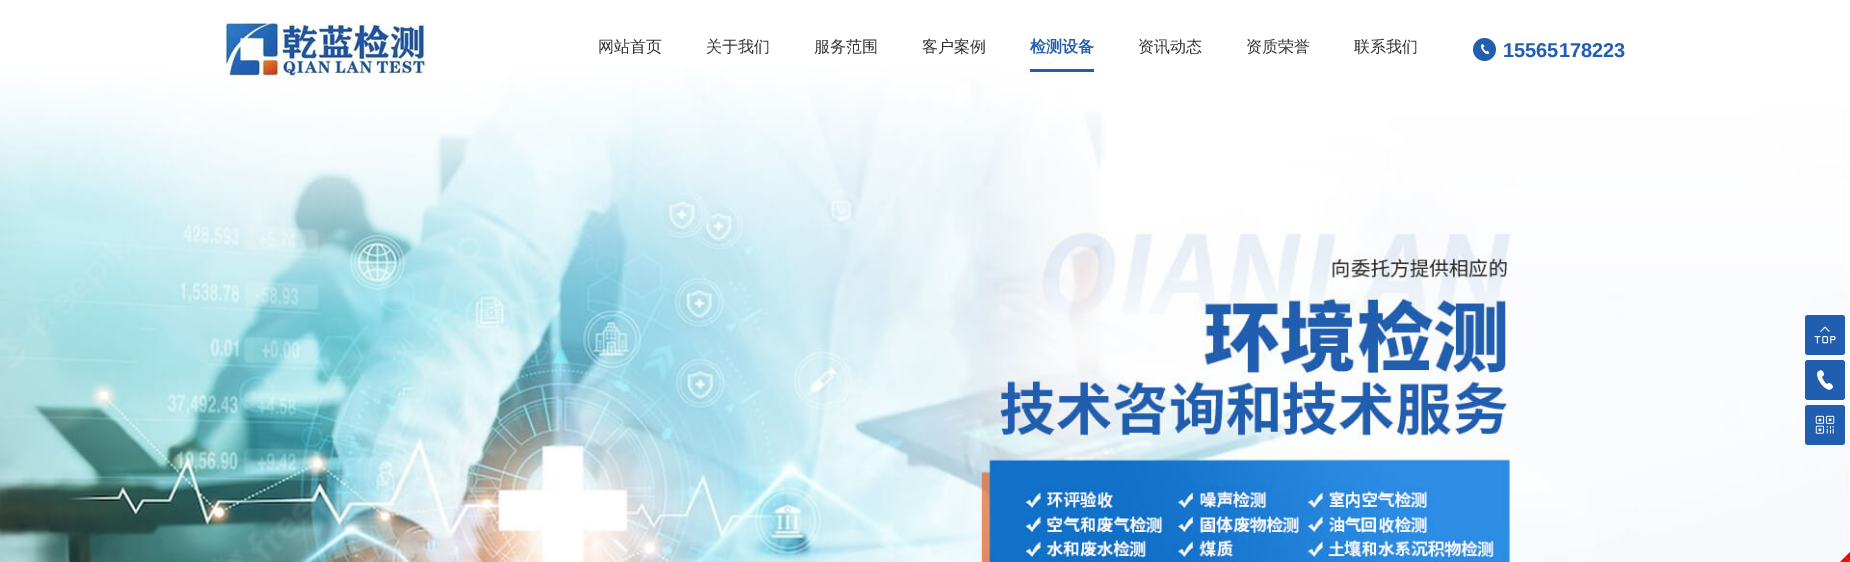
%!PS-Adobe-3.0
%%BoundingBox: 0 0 1850 562
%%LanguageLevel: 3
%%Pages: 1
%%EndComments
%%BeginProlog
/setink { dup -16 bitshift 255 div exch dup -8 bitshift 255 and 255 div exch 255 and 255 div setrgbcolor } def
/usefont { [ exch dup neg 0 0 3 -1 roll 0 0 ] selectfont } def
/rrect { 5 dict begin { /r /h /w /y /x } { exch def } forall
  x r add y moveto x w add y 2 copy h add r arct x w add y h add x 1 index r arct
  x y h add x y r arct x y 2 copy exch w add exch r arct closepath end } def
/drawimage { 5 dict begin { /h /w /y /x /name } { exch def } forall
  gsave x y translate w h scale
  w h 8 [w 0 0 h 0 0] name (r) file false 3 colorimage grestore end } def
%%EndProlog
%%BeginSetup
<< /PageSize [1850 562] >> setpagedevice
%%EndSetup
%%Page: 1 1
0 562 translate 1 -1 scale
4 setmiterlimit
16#FFFFFF setink
0 0 1850 562 rectfill
(img1.raw) 0 0 1850 562 drawimage
(img2.raw) 225 22 201 55 drawimage
/WenQuanYiZenHei-Medium 16 usefont
16#333333 setink
[
    [(网站首页) 598 52]
    [(关于我们) 706 52]
    [(服务范围) 814 52]
    [(客户案例) 922 52]
] { aload pop moveto show } forall
/WenQuanYiZenHei-Bold 16 usefont
16#215EAF setink
1030 52 moveto (检测设备) show
1030 69 64 3 rectfill
/WenQuanYiZenHei-Medium 16 usefont
16#333333 setink
[
    [(资讯动态) 1138 52]
    [(资质荣誉) 1246 52]
    [(联系我们) 1354 52]
] { aload pop moveto show } forall
(img3.raw) 1473 38 23 23 drawimage
/LiberationSans-Bold 20 usefont
16#215EAF setink
1503 57 moveto (15565178223) show
1805 315 40 40 3 rrect fill
(img4.raw) 1814 326 22 18 drawimage
1805 360 40 40 3 rrect fill
(img5.raw) 1817 370 16 20 drawimage
1805 405 40 40 3 rrect fill
(img6.raw) 1815 415 20 19 drawimage
16#FF0000 setink
1850 552 moveto 1850 562 lineto 1845 557 lineto closepath fill
1850 562 moveto 1840 562 lineto 1845 557 lineto closepath fill
showpage
%%EOF
